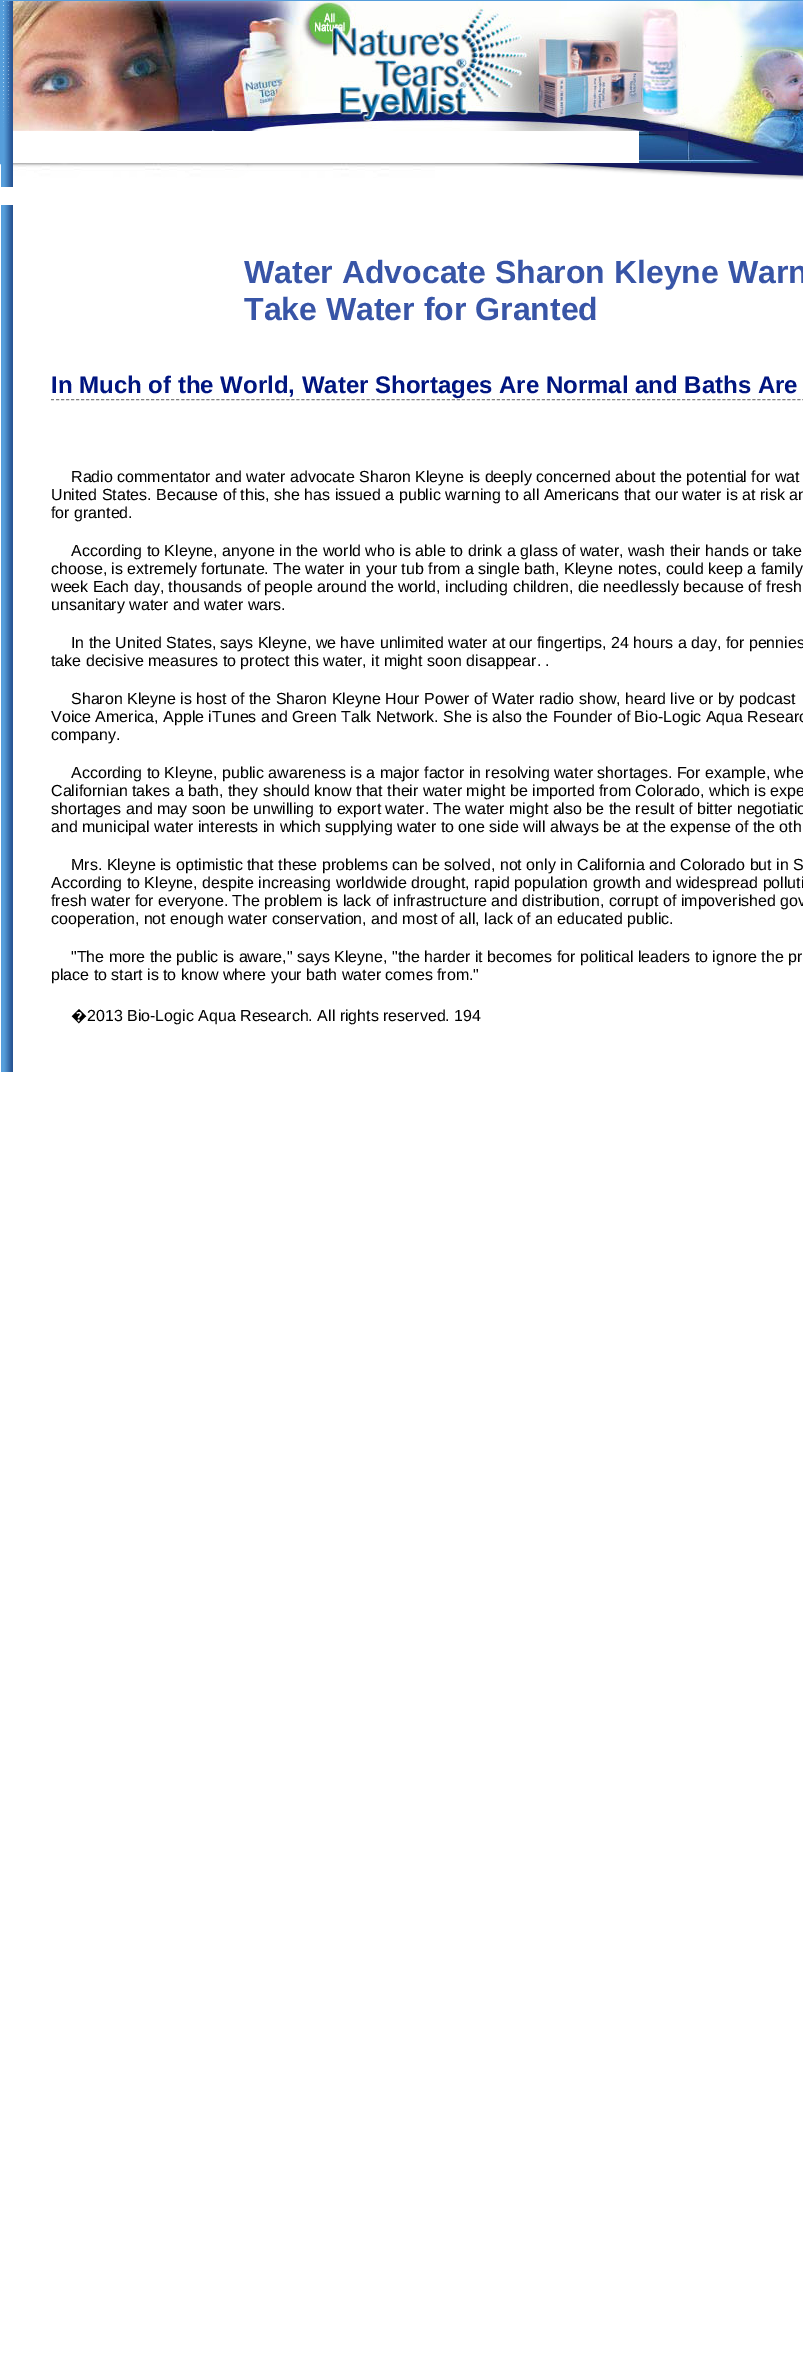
%!PS-Adobe-3.0
%%BoundingBox: 0 0 803 2356
%%LanguageLevel: 3
%%Pages: 1
%%EndComments
%%BeginProlog
/setink { dup -16 bitshift 255 div exch dup -8 bitshift 255 and 255 div exch 255 and 255 div setrgbcolor } def
/usefont { [ exch dup neg 0 0 3 -1 roll 0 0 ] selectfont } def
/drawimage { 5 dict begin { /h /w /y /x /name } { exch def } forall
  gsave x y translate w h scale
  w h 8 [w 0 0 h 0 0] name (r) file false 3 colorimage grestore end } def
%%EndProlog
%%BeginSetup
<< /PageSize [803 2356] >> setpagedevice
%%EndSetup
%%Page: 1 1
0 2356 translate 1 -1 scale
4 setmiterlimit
16#FFFFFF setink
0 0 803 2356 rectfill
16#569EDB setink
0.5 0.5 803 163 rectstroke
(img1.raw) 1 1 12 130 drawimage
(img2.raw) 13 1 199 130 drawimage
(img3.raw) 212 1 474 130 drawimage
(img4.raw) 686 1 117 130 drawimage
(img5.raw) 1 131 12 32 drawimage
(img6.raw) 639 131 164 32 drawimage
(img7.raw) 1 163 12 24 drawimage
(img8.raw) 13 163 422 15 drawimage
(img9.raw) 435 163 65 4 drawimage
(img10.raw) 500 163 303 17 drawimage
(img11.raw) 1 205 12 867 drawimage
/LiberationSans-Bold 32 usefont
16#3855A7 setink
244 283 moveto (Water Advocate Sharon Kleyne Warn) show
244 320 moveto (Take Water for Granted) show
16#808080 setink
[3 2.01] 0 setdash
51 399.5 moveto 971 399.5 lineto stroke
/LiberationSans-Bold 24 usefont
16#001580 setink
51 393 moveto (In Much of the World, Water Shortages Are Normal and Baths Are) show
/LiberationSans-Regular 16 usefont
16#000000 setink
[
    [(Radio commentator and water advocate Sharon Kleyne is deeply concerned about the potential for wat) 71 482]
    [(United States. Because of this, she has issued a public warning to all Americans that our water is at risk an) 51 500]
    [(for granted.) 51 518]
    [(According to Kleyne, anyone in the world who is able to drink a glass of water, wash their hands or take) 71 556]
    [(choose, is extremely fortunate. The water in your tub from a single bath, Kleyne notes, could keep a family) 51 574]
    [(week Each day, thousands of people around the world, including children, die needlessly because of fresh) 51 592]
    [(unsanitary water and water wars.) 51 610]
    [(In the United States, says Kleyne, we have unlimited water at our fingertips, 24 hours a day, for pennies) 71 648]
    [(take decisive measures to protect this water, it might soon disappear. .) 51 666]
    [(Sharon Kleyne is host of the Sharon Kleyne Hour Power of Water radio show, heard live or by podcast) 71 704]
    [(Voice America, Apple iTunes and Green Talk Network. She is also the Founder of Bio-Logic Aqua Researc) 51 722]
    [(company.) 51 740]
    [(According to Kleyne, public awareness is a major factor in resolving water shortages. For example, whe) 71 778]
    [(Californian takes a bath, they should know that their water might be imported from Colorado, which is expe) 51 796]
    [(shortages and may soon be unwilling to export water. The water might also be the result of bitter negotiatio) 51 814]
    [(and municipal water interests in which supplying water to one side will always be at the expense of the oth) 51 832]
    [(Mrs. Kleyne is optimistic that these problems can be solved, not only in California and Colorado but in S) 71 870]
    [(According to Kleyne, despite increasing worldwide drought, rapid population growth and widespread polluti) 51 888]
    [(fresh water for everyone. The problem is lack of infrastructure and distribution, corrupt of impoverished gov) 51 906]
    [(cooperation, not enough water conservation, and most of all, lack of an educated public.) 51 924]
    [("The more the public is aware," says Kleyne, "the harder it becomes for political leaders to ignore the pr) 71 962]
    [(place to start is to know where your bath water comes from.") 51 980]
] { aload pop moveto show } forall
/NotoSans-Regular 16 usefont
71 1021 moveto (�) show
/LiberationSans-Regular 16 usefont
87 1021 moveto (2013 Bio-Logic Aqua Research. All rights reserved. 194) show
showpage
%%EOF
